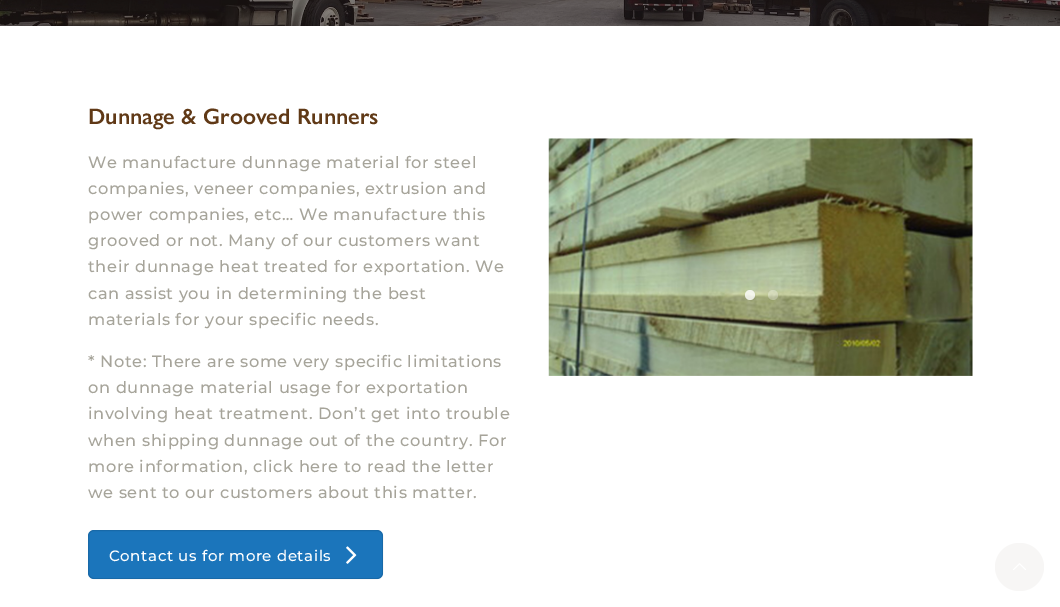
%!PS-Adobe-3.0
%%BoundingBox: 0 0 1060 607
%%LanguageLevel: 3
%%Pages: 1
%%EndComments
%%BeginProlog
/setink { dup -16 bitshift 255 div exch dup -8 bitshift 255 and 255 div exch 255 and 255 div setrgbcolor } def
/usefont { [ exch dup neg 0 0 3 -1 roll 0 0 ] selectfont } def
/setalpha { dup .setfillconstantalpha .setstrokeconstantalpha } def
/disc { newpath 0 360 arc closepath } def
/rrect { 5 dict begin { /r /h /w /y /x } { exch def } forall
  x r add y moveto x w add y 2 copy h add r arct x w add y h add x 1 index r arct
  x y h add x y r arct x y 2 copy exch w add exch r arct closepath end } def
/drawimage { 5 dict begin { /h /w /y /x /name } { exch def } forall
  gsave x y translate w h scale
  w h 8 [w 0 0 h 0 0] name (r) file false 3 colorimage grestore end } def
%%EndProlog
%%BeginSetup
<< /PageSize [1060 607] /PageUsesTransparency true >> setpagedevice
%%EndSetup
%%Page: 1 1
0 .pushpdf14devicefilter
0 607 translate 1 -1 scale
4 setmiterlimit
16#FFFFFF setink
0 0 1060 607 rectfill
(img1.raw) 0 0 1060 26 drawimage
/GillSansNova-SemiBold 22.5 usefont
16#603916 setink
88 124 moveto (Dunnage & Grooved Runners) show
/Montserrat-Medium 16.25 usefont
16#A6A49A setink
88 168 moveto 0.6 0 (We manufacture dunnage material for steel) ashow
88 194 moveto 0.6 0 (companies, veneer companies, extrusion and) ashow
88 220 moveto 0.6 0 (power companies, etc… We manufacture this) ashow
88 246 moveto 0.6 0 (grooved or not. Many of our customers want) ashow
88 272 moveto 0.6 0 (their dunnage heat treated for exportation. We) ashow
88 299 moveto 0.6 0 (can assist you in determining the best) ashow
88 325 moveto 0.6 0 (materials for your specific needs.) ashow
88 367 moveto 0.6 0 (* Note: There are some very specific limitations) ashow
88 393 moveto 0.6 0 (on dunnage material usage for exportation) ashow
88 419 moveto 0.6 0 (involving heat treatment. Don’t get into trouble) ashow
88 446 moveto 0.6 0 (when shipping dunnage out of the country. For) ashow
88 472 moveto 0.6 0 (more information, click here to read the letter) ashow
88 498 moveto 0.6 0 (we sent to our customers about this matter.) ashow
16#1B75BB setink
88 530 295 49 6 rrect fill
0.1 setalpha
16#000000 setink
88.5 530.5 294 48 5.5 rrect stroke
/Montserrat-Medium 15 usefont
1 setalpha
16#FFFFFF setink
109 561 moveto 0.6 0 (Contact us for more details) ashow
(img2.raw) 346 546 11 18 drawimage
(img3.raw) 548 138 425 238 drawimage
0.8 setalpha
750 295 5 disc fill
0.32 setalpha
773 295 5 disc fill
1 setalpha
16#F7F6F5 setink
995 543 49 48 24 rrect fill
(img4.raw) 1013 563 13 7 drawimage
.poppdf14devicefilter showpage
%%EOF
